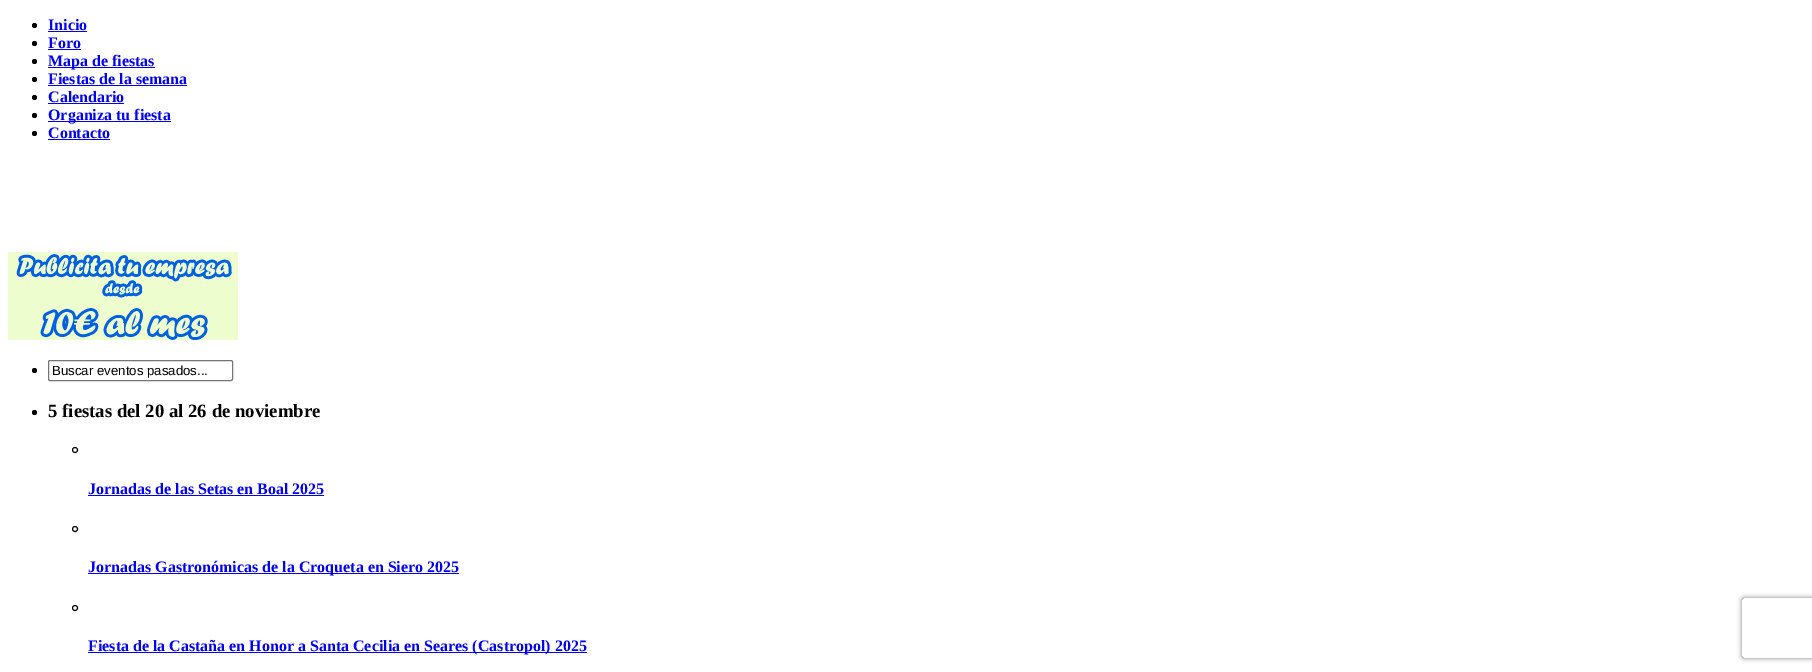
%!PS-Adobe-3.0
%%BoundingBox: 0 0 1812 672
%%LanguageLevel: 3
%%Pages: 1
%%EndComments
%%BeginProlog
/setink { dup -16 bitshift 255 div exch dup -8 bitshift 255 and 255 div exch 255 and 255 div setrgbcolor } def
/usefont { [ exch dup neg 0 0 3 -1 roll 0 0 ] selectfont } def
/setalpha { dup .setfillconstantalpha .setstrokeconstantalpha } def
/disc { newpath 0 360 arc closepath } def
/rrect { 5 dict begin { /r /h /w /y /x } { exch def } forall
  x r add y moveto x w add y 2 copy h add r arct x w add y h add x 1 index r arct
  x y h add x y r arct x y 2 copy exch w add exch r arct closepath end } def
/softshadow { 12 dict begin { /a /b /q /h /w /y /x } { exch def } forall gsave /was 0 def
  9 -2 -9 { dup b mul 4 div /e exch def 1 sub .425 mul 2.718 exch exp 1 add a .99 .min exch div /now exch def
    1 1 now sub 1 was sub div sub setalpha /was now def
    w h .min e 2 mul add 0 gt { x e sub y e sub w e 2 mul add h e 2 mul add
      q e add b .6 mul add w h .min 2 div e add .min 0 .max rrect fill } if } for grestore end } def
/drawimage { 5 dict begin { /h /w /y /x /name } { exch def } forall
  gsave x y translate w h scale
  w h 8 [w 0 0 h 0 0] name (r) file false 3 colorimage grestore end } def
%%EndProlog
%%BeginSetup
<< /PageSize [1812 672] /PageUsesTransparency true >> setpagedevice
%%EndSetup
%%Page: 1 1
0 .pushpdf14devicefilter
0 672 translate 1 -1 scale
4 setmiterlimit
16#FFFFFF setink
0 0 1812 672 rectfill
16#000000 setink
34.5 25.5 2.5 disc fill
/LiberationSerif-Bold 16 usefont
16#0000EE setink
48 30 moveto (Inicio) show
48 31 39 1 rectfill
16#000000 setink
34.5 43.5 2.5 disc fill
16#0000EE setink
48 48 moveto (Foro) show
48 49 33 1 rectfill
16#000000 setink
34.5 61.5 2.5 disc fill
16#0000EE setink
48 67 107 1 rectfill
48 66 moveto (Mapa de fiestas) show
16#000000 setink
34.5 79.5 2.5 disc fill
16#0000EE setink
48 84 moveto (Fiestas de la semana) show
48 85 139 1 rectfill
16#000000 setink
34.5 97.5 2.5 disc fill
16#0000EE setink
48 102 moveto (Calendario) show
48 103 76 1 rectfill
16#000000 setink
34.5 115.5 2.5 disc fill
16#0000EE setink
48 121 123 1 rectfill
48 120 moveto (Organiza tu fiesta) show
16#000000 setink
34.5 133.5 2.5 disc fill
16#0000EE setink
48 138 moveto (Contacto) show
48 139 62 1 rectfill
(img1.raw) 8 252 230 88 drawimage
16#000000 setink
34.5 370.5 2.5 disc fill
16#767676 setink
48.5 360.5 184 20 1.5 rrect stroke
/LiberationSans-Regular 13.25 usefont
16#000000 setink
52 375 moveto (Buscar eventos pasados...) show
34.5 412.5 2.5 disc fill
/LiberationSerif-Bold 18.75 usefont
48 417 moveto (5 fiestas del 20 al 26 de noviembre) show
75 450 2.5 disc stroke
/LiberationSerif-Bold 16 usefont
16#0000EE setink
88 494 moveto (Jornadas de las Setas en Boal 2025) show
88 495 236 1 rectfill
16#000000 setink
75 529 2.5 disc stroke
16#0000EE setink
88 573 371 1 rectfill
88 572 moveto (Jornadas Gastronómicas de la Croqueta en Siero 2025) show
16#000000 setink
75 608 2.5 disc stroke
16#0000EE setink
88 652 499 1 rectfill
88 651 moveto (Fiesta de la Castaña en Honor a Santa Cecilia en Seares \(Castropol\) 2025) show
gsave
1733 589 moveto 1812 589 lineto 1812 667 lineto 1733 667 lineto closepath 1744 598 moveto 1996 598 lineto 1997 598 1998 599 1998 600 curveto 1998 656 lineto 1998 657 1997 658 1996 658 curveto 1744 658 lineto 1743 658 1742 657 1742 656 curveto 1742 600 lineto 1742 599 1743 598 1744 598 curveto closepath eoclip newpath
16#808080 setink
1742 598 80 60 2 2.5 1 softshadow
grestore
.poppdf14devicefilter showpage
%%EOF
